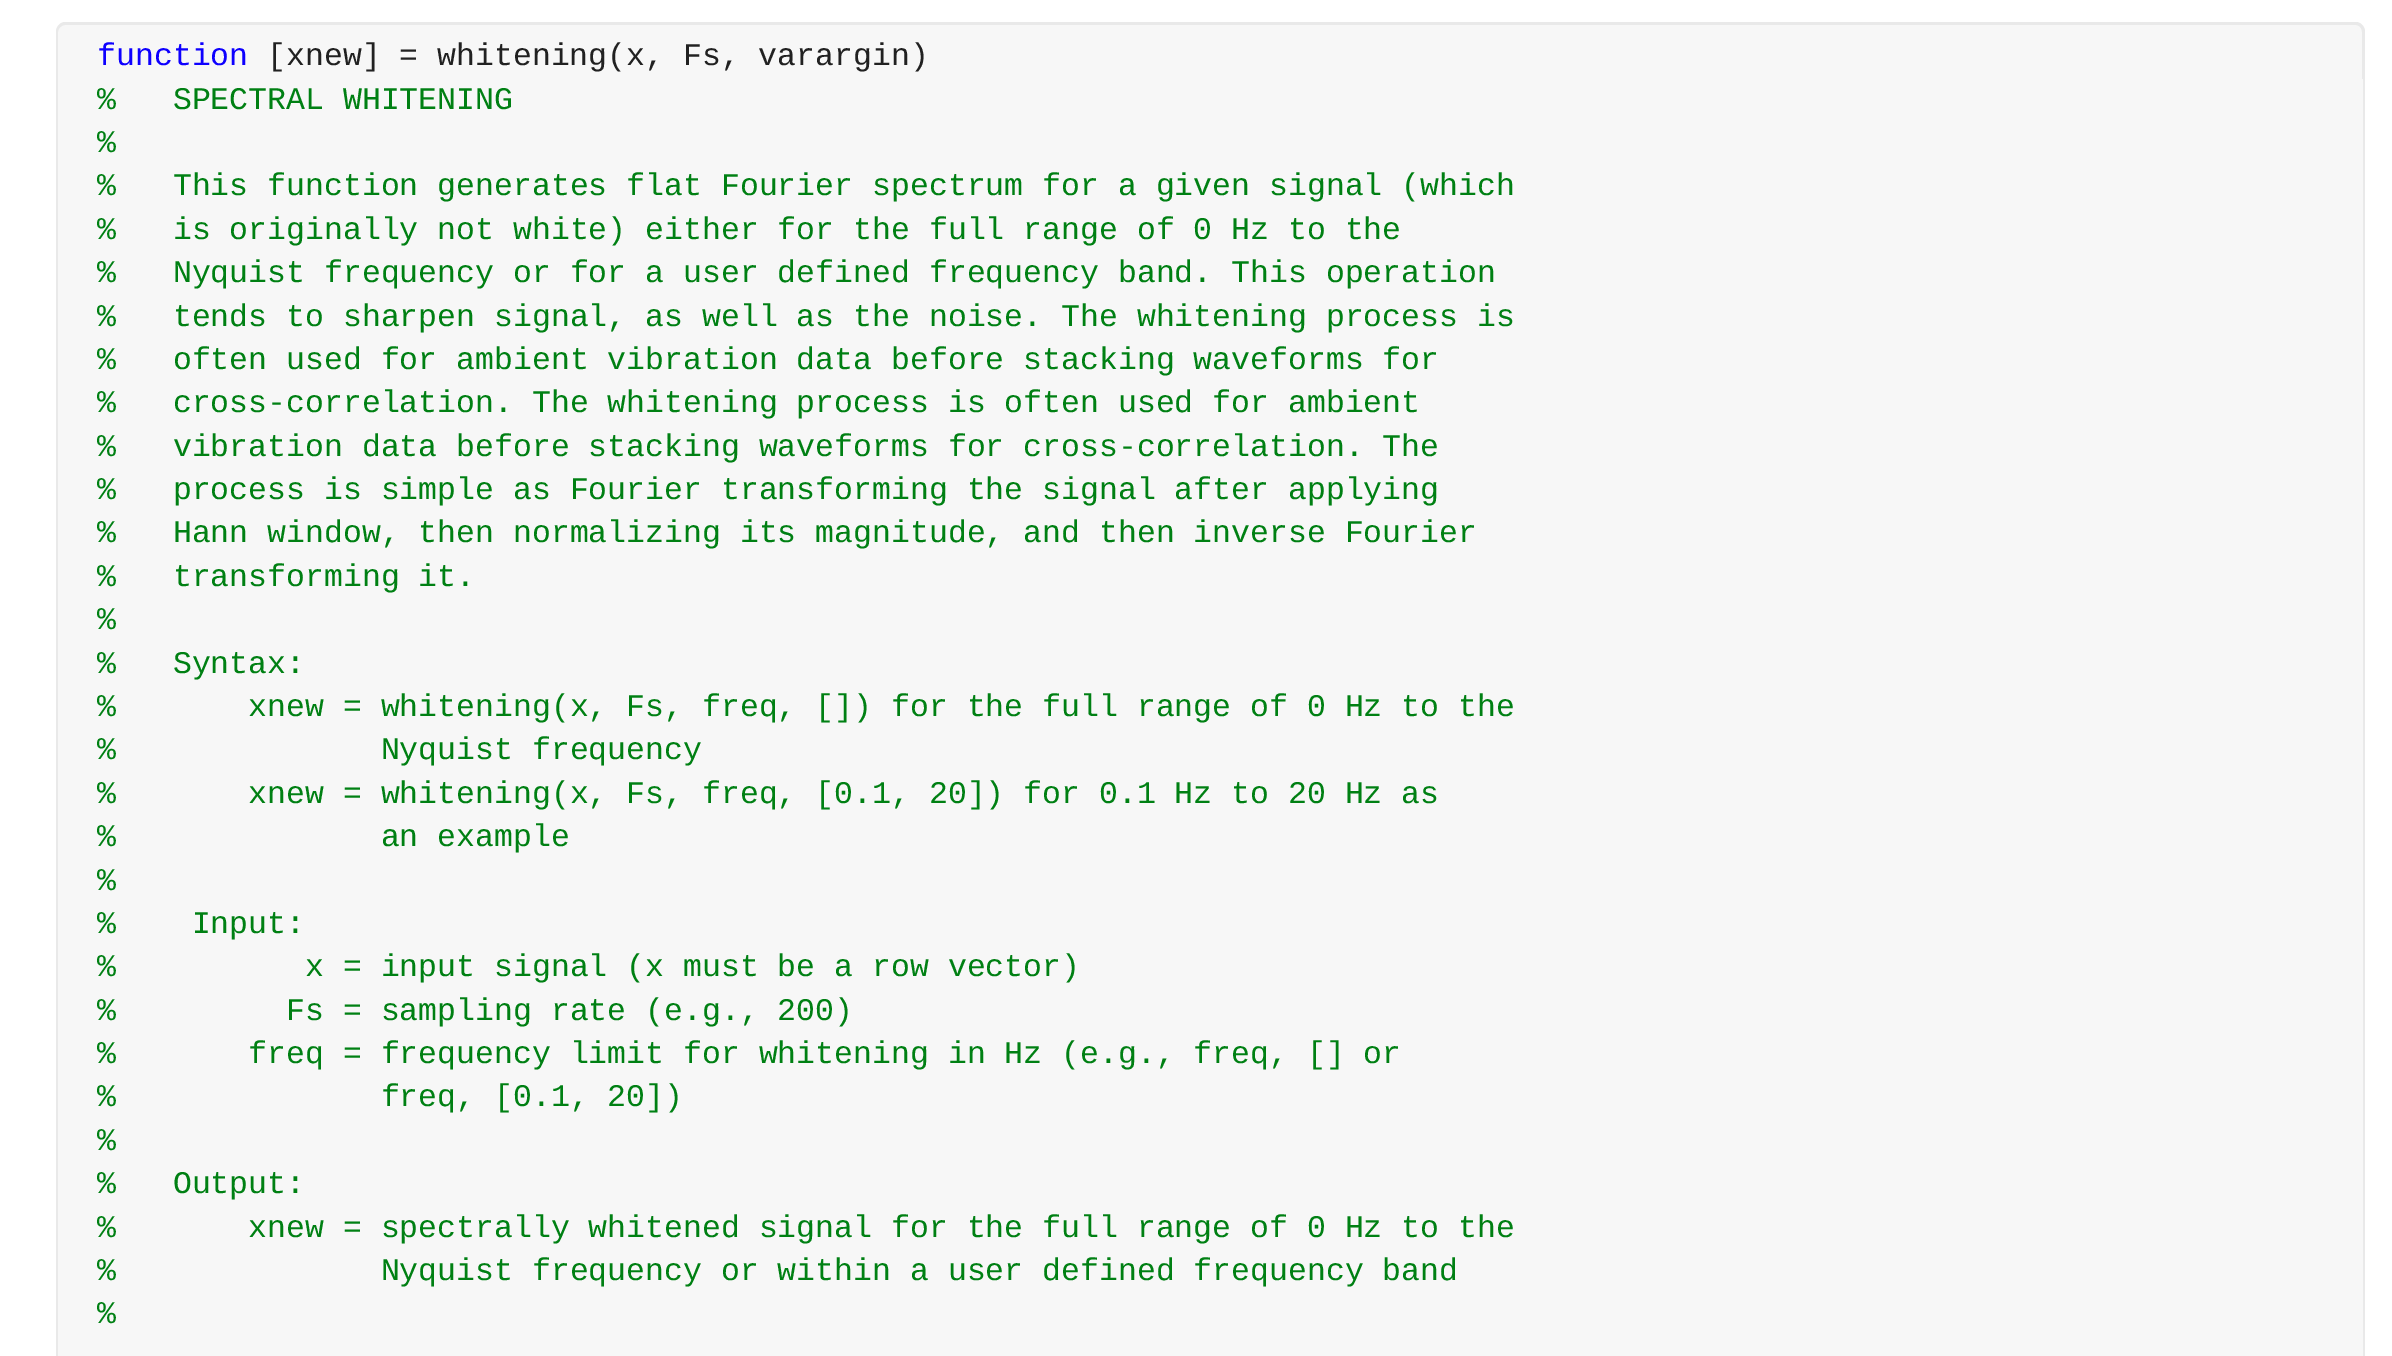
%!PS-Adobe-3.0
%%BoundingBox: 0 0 2392 1356
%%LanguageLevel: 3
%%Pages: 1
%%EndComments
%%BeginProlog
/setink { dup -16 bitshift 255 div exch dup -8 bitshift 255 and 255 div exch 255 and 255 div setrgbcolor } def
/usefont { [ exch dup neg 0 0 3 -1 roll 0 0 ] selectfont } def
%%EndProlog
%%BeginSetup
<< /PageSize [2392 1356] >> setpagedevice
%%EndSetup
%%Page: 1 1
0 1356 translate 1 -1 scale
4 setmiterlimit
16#FFFFFF setink
0 0 2392 1356 rectfill
16#F7F7F7 setink
65 23 moveto 2356 23 lineto 2361 23 2365 27 2365 32 curveto 2365 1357 lineto 56 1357 lineto 56 32 lineto 56 27 60 23 65 23 curveto closepath fill
16#E9E9E9 setink
65 22 moveto 2356 22 lineto 2361 22 2365 27 2365 32 curveto 2365 79 lineto 56 79 lineto 56 32 lineto 56 27 60 22 65 22 curveto closepath 65 25 moveto 2356 25 lineto 2359 25 2362 28 2362 32 curveto 2362 79 lineto 58 79 lineto 58 32 lineto 58 28 62 25 65 25 curveto closepath eofill
/LiberationMono-Regular 31.5 usefont
16#0E00FF setink
97 65 moveto (function) show
16#212121 setink
267 65 moveto ([xnew] = whitening\(x, Fs, varargin\)) show
16#E9E9E9 setink
2363 79 2 1277 rectfill
56 79 2 1277 rectfill
16#008013 setink
[
    [(%   SPECTRAL WHITENING) 97 109]
    [(%) 97 152]
    [(%   This function generates flat Fourier spectrum for a given signal \(which) 97 195]
    [(%   is originally not white\) either for the full range of 0 Hz to the) 97 239]
    [(%   Nyquist frequency or for a user defined frequency band. This operation) 97 282]
    [(%   tends to sharpen signal, as well as the noise. The whitening process is) 97 326]
    [(%   often used for ambient vibration data before stacking waveforms for) 97 369]
    [(%   cross-correlation. The whitening process is often used for ambient) 97 412]
    [(%   vibration data before stacking waveforms for cross-correlation. The) 97 456]
    [(%   process is simple as Fourier transforming the signal after applying) 97 499]
    [(%   Hann window, then normalizing its magnitude, and then inverse Fourier) 97 542]
    [(%   transforming it.) 97 586]
    [(%) 97 629]
    [(%   Syntax:) 97 673]
    [(%       xnew = whitening\(x, Fs, freq, []\) for the full range of 0 Hz to the) 97 716]
    [(%              Nyquist frequency) 97 759]
    [(%       xnew = whitening\(x, Fs, freq, [0.1, 20]\) for 0.1 Hz to 20 Hz as) 97 803]
    [(%              an example) 97 846]
    [(%) 97 890]
    [(%    Input:) 97 933]
    [(%          x = input signal \(x must be a row vector\)) 97 976]
    [(%         Fs = sampling rate \(e.g., 200\)) 97 1020]
    [(%       freq = frequency limit for whitening in Hz \(e.g., freq, [] or) 97 1063]
    [(%              freq, [0.1, 20]\)) 97 1106]
    [(%) 97 1150]
    [(%   Output:) 97 1193]
    [(%       xnew = spectrally whitened signal for the full range of 0 Hz to the) 97 1237]
    [(%              Nyquist frequency or within a user defined frequency band) 97 1280]
    [(%) 97 1323]
] { aload pop moveto show } forall
showpage
%%EOF
